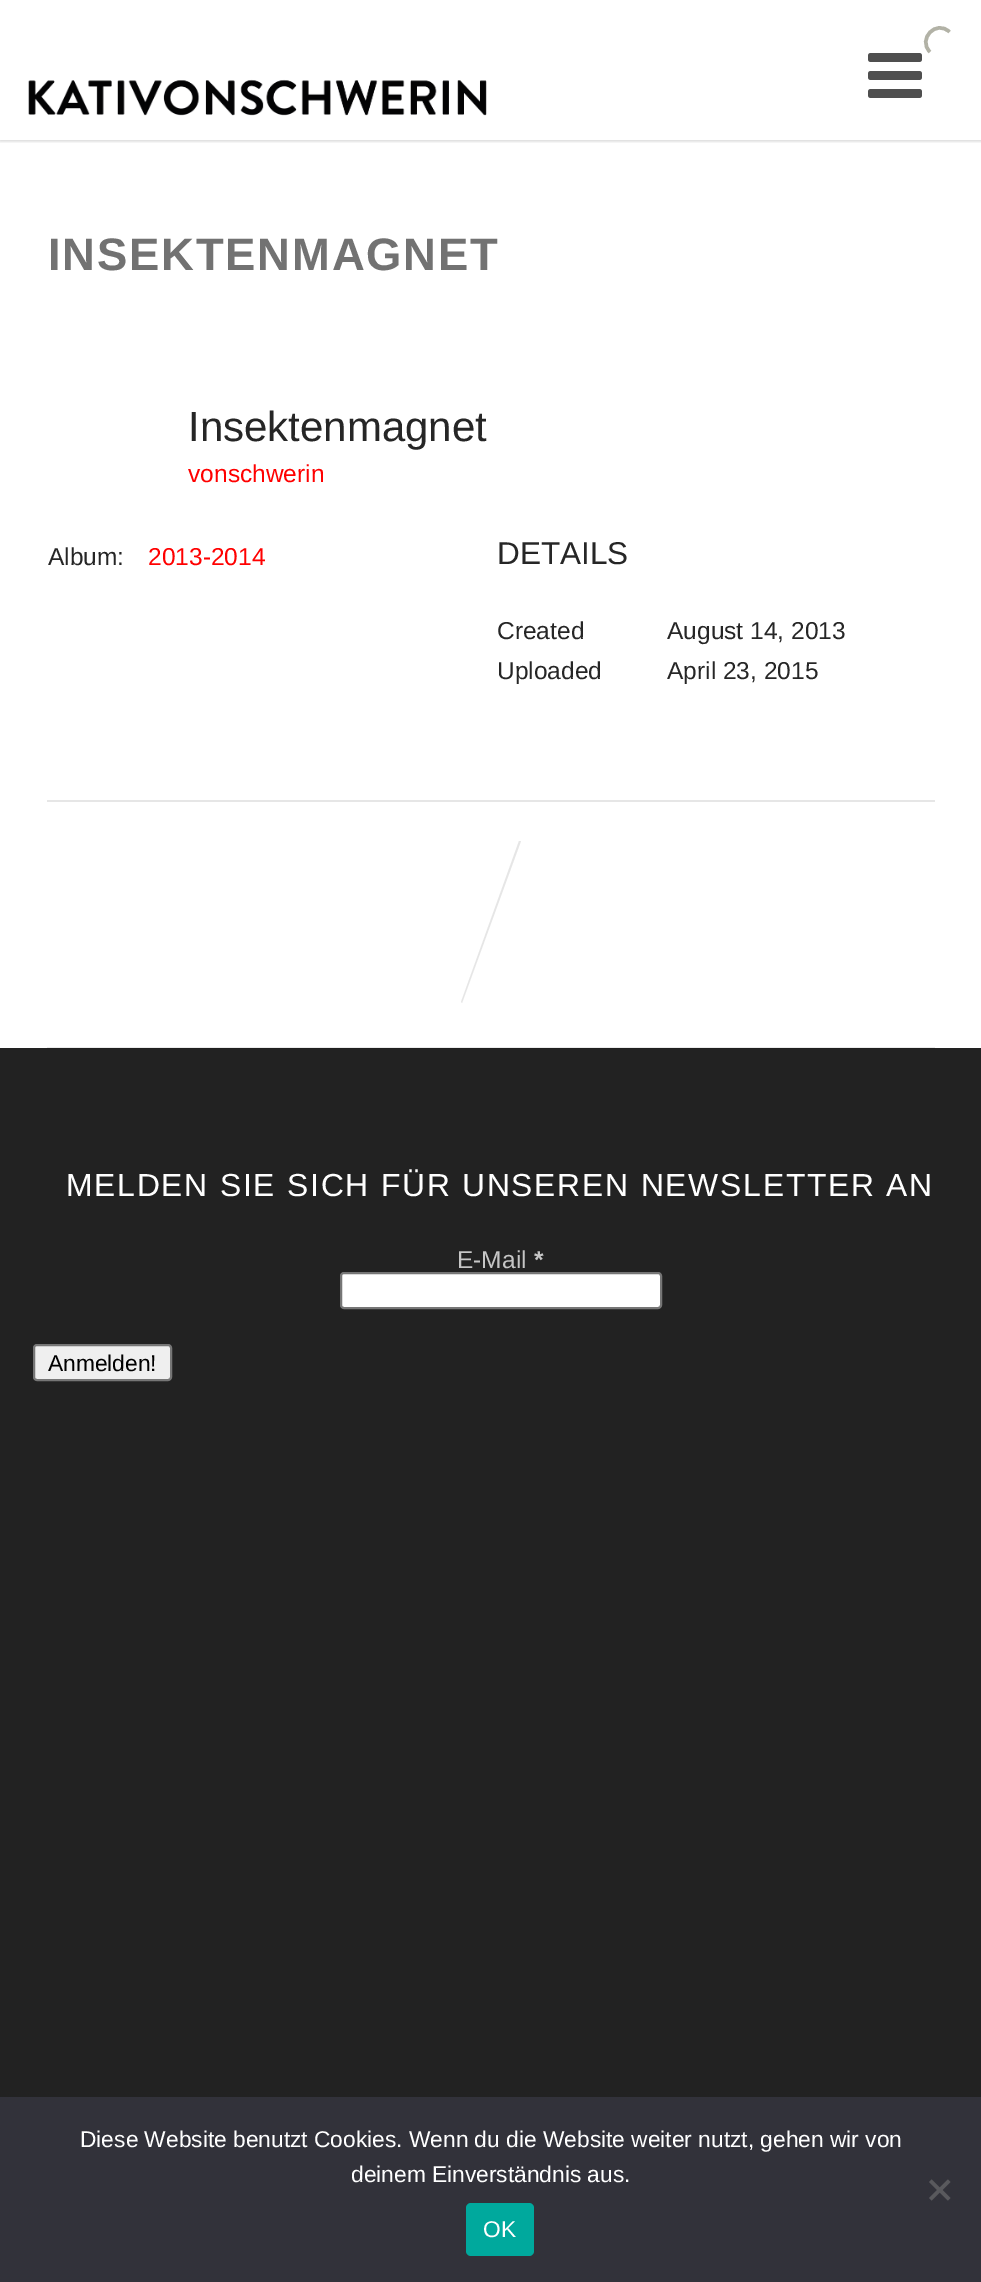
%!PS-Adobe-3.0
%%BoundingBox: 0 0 981 2282
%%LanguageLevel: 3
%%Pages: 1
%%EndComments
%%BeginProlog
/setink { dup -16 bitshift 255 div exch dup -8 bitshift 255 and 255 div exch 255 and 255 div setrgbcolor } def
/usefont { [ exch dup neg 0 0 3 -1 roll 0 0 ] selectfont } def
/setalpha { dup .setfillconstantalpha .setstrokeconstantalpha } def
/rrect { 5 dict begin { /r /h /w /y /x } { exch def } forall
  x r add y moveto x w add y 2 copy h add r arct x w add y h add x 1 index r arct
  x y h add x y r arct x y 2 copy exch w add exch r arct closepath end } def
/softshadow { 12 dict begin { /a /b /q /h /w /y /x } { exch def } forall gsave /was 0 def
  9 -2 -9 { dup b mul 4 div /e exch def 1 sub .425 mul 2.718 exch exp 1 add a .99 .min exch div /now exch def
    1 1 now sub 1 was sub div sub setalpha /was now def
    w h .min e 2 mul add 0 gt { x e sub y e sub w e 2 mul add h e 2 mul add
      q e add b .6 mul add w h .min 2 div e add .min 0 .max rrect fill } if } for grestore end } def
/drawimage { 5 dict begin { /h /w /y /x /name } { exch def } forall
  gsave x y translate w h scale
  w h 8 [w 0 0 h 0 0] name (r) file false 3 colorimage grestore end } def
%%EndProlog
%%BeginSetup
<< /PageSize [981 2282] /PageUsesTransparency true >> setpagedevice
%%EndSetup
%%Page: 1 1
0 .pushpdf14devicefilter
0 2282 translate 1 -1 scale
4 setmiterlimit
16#FFFFFF setink
0 0 981 2282 rectfill
16#EBEBEB setink
47 1047 888 1 rectfill
gsave
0 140 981 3 rectclip
16#000000 setink
0 0 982 140 0 2.5 0.25 softshadow
grestore
(img1.raw) 28 79 459 37 drawimage
(img2.raw) 868 53 54 45 drawimage
16#B2B2A6 setink
3.5 setlinewidth
930 52 moveto 917 39 936.5 19 949.5 32 curveto stroke
/LiberationSans-Bold 45.5 usefont
16#727272 setink
48 270 moveto 1.75 0 (INSEKTENMAGNET) ashow
/LiberationSans-Regular 42 usefont
16#262626 setink
188 441 moveto (Insektenmagnet) show
/LiberationSans-Regular 24.5 usefont
16#FF0000 setink
188 482 moveto (vonschwerin) show
16#262626 setink
48 565 moveto (Album:) show
16#FF0000 setink
148 565 moveto (2013-2014) show
/LiberationSans-Regular 31.5 usefont
16#262626 setink
497 564 moveto (DETAILS) show
/LiberationSans-Regular 24.5 usefont
[
    [(Created) 497 639]
    [(August 14, 2013) 667 639]
    [(Uploaded) 497 679]
    [(April 23, 2015) 667 679]
] { aload pop moveto show } forall
16#E6E6E6 setink
47 800 888 2 rectfill
519 841 moveto 521 841 lineto 462 1003 lineto 461 1002 lineto closepath fill
16#222222 setink
0 1048 981 1049 rectfill
16#1F1F1F setink
47 1048 888 1 rectfill
/LiberationSans-Regular 31.85 usefont
16#FFFFFF setink
66 1196 moveto 1.75 0 (MELDEN SIE SICH FÜR UNSEREN NEWSLETTER AN) ashow
/LiberationSans-Regular 24.5 usefont
16#C6C6C6 setink
457 1268 moveto (E-Mail) show
/LiberationSans-Bold 24.5 usefont
534 1268 moveto (*) show
16#FFFFFF setink
341 1273 320 35 3 rrect gsave fill grestore
16#767676 setink
2 setlinewidth
stroke
16#EFEFEF setink
34 1345 137 35 3 rrect gsave fill grestore
16#767676 setink
stroke
/LiberationSans-Regular 22.75 usefont
16#000000 setink
48 1371 moveto (Anmelden!) show
16#32323A setink
0 2097 981 185 rectfill
16#FFFFFF setink
80 2147 moveto (Diese Website benutzt Cookies. Wenn du die Website weiter nutzt, gehen wir von) show
351 2182 moveto (deinem Einverständnis aus.) show
16#59595D setink
948 2179.5 moveto 950.5 2182 lineto 931.5 2200.5 lineto 929 2198 lineto closepath fill
929 2182 moveto 931.5 2179.5 lineto 950.5 2198 lineto 948 2200.5 lineto closepath fill
16#00A99D setink
466 2203 68 53 5 rrect fill
16#FFFFFF setink
483 2237 moveto (OK) show
.poppdf14devicefilter showpage
%%EOF
